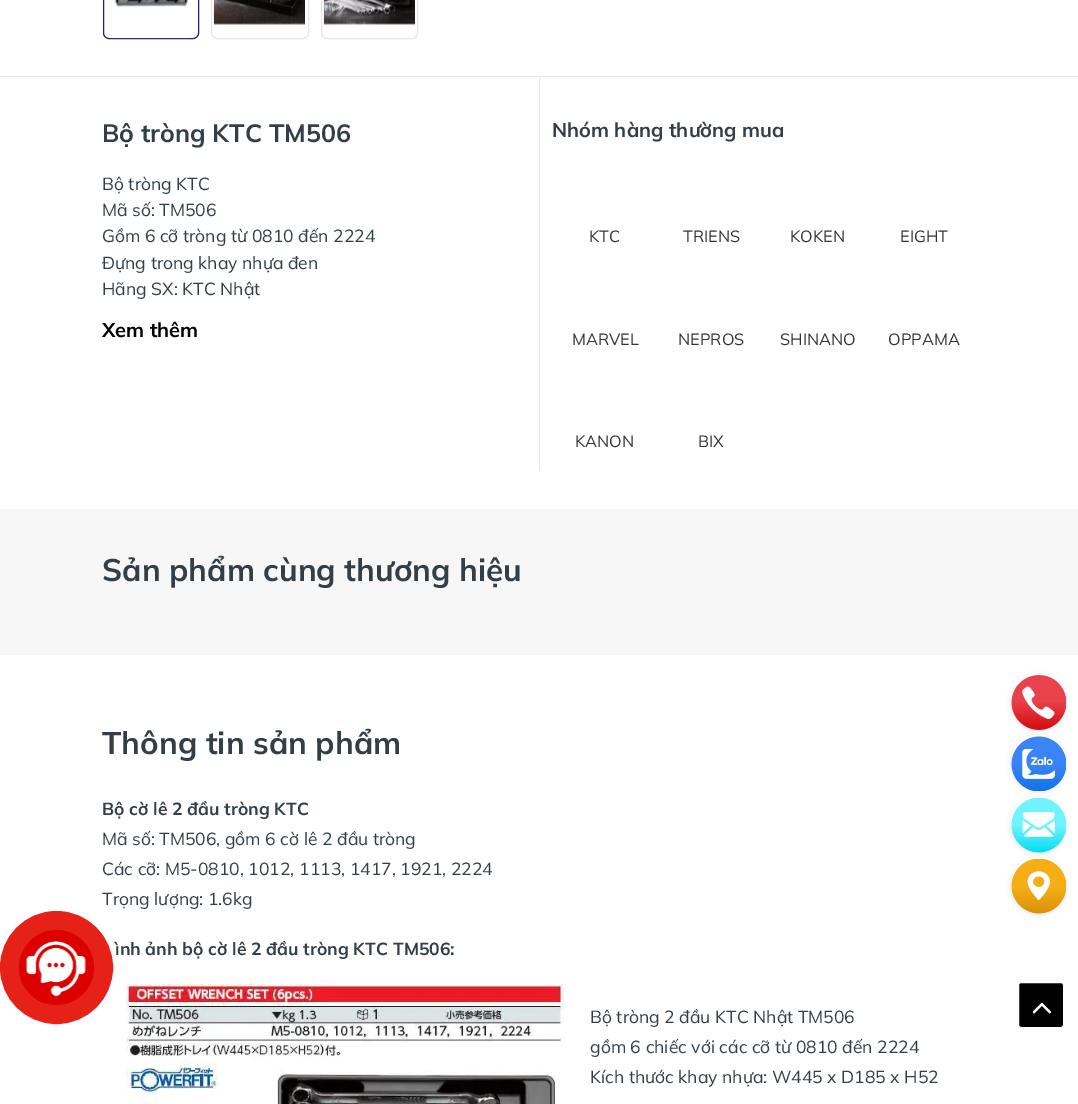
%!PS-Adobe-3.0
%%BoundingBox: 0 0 1078 1104
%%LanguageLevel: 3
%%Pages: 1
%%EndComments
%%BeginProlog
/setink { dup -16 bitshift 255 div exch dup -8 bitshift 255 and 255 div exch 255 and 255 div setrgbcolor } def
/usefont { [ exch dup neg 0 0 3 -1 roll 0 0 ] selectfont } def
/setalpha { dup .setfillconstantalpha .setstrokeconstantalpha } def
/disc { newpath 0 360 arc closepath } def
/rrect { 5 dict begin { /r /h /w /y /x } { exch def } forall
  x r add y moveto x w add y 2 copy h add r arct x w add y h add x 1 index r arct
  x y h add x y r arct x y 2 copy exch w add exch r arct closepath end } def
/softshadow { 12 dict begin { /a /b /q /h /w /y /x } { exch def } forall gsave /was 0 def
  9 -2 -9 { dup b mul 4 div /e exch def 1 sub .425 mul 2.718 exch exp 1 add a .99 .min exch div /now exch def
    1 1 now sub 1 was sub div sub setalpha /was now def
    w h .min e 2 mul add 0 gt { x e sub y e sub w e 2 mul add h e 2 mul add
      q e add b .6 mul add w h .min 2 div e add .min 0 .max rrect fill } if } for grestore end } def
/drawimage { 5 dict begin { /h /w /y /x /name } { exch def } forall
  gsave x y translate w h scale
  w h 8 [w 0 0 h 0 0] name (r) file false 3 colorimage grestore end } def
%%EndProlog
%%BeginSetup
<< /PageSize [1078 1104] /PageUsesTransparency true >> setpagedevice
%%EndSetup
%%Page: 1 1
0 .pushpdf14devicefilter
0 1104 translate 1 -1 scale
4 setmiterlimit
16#FFFFFF setink
0 0 1078 1104 rectfill
16#271D73 setink
103.5 -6.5 95 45 5.5 rrect stroke
(img1.raw) 110 0 81 39 drawimage
16#E6E6E6 setink
211.5 -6.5 97 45 5.5 rrect stroke
(img2.raw) 213 0 92 25 drawimage
321.5 -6.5 96 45 5.5 rrect stroke
(img3.raw) 323 0 92 25 drawimage
0 76 1078 1 rectfill
539 78 1 393 rectfill
/Mulish-Bold 25 usefont
16#333F48 setink
102 142 moveto (Bộ tròng KTC TM506) show
/Mulish-Regular 17.5 usefont
[
    [(Bộ tròng KTC) 102 190]
    [(Mã số: TM506) 102 216]
    [(Gồm 6 cỡ tròng từ 0810 đến 2224) 102 242]
    [(Đựng trong khay nhựa đen) 102 269]
    [(Hãng SX: KTC Nhật) 102 295]
] { aload pop moveto show } forall
/Mulish-Bold 20 usefont
16#000000 setink
102 337 moveto (Xem thêm) show
16#333F48 setink
552 137 moveto (Nhóm hàng thường mua) show
/Mulish-Regular 16.25 usefont
16#333333 setink
[
    [(KTC) 589 242]
    [(TRIENS) 683 242]
    [(KOKEN) 790 242]
    [(EIGHT) 900 242]
    [(MARVEL) 572 345]
    [(NEPROS) 678 345]
    [(SHINANO) 780 345]
    [(OPPAMA) 888 345]
    [(KANON) 575 447]
    [(BIX) 698 447]
] { aload pop moveto show } forall
16#F7F7F7 setink
0 509 1078 146 rectfill
/Mulish-Bold 31.25 usefont
16#333F48 setink
102 581 moveto (Sản phẩm cùng thương hiệu) show
102 754 moveto (Thông tin sản phẩm) show
/Mulish-Bold 17.5 usefont
102 815 moveto (Bộ cờ lê 2 đầu tròng KTC) show
/Mulish-Regular 17.5 usefont
[
    [(Mã số: TM506, gồm 6 cờ lê 2 đầu tròng) 102 845]
    [(Các cỡ: M5-0810, 1012, 1113, 1417, 1921, 2224) 102 875]
    [(Trọng lượng: 1.6kg) 102 905]
] { aload pop moveto show } forall
/Mulish-Bold 17.5 usefont
115 955 moveto (ình ảnh bộ cờ lê 2 đầu tròng KTC TM506:) show
(img4.raw) 126 984 438 120 drawimage
/Mulish-Regular 17.5 usefont
[
    [(Bộ tròng 2 đầu KTC Nhật TM506) 590 1023]
    [(gồm 6 chiếc với các cỡ từ 0810 đến 2224) 590 1053]
    [(Kích thước khay nhựa: W445 x D185 x H52) 590 1083]
] { aload pop moveto show } forall
gsave
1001 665 moveto 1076 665 lineto 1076 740 lineto 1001 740 lineto closepath 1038.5 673 moveto 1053.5 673 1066 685.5 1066 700.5 curveto 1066 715.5 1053.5 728 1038.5 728 curveto 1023.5 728 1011 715.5 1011 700.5 curveto 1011 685.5 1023.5 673 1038.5 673 curveto closepath eoclip newpath
16#000000 setink
1011 675 55 55 27.5 3 0.11 softshadow
grestore
(img5.raw) 1011 675 55 55 drawimage
gsave
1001 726 moveto 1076 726 lineto 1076 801 lineto 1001 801 lineto closepath 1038.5 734 moveto 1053.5 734 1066 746.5 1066 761.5 curveto 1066 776.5 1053.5 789 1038.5 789 curveto 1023.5 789 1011 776.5 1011 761.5 curveto 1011 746.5 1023.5 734 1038.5 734 curveto closepath eoclip newpath
16#000000 setink
1011 736 55 55 27.5 3 0.11 softshadow
grestore
(img6.raw) 1011 736 55 55 drawimage
gsave
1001 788 moveto 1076 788 lineto 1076 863 lineto 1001 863 lineto closepath 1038.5 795 moveto 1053.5 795 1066 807.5 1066 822.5 curveto 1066 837.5 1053.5 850 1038.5 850 curveto 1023.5 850 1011 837.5 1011 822.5 curveto 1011 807.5 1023.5 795 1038.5 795 curveto closepath eoclip newpath
16#000000 setink
1011 798 55 55 27.5 3 0.11 softshadow
grestore
(img7.raw) 1011 798 55 55 drawimage
gsave
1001 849 moveto 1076 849 lineto 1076 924 lineto 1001 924 lineto closepath 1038.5 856 moveto 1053.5 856 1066 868.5 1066 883.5 curveto 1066 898.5 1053.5 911 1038.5 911 curveto 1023.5 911 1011 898.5 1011 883.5 curveto 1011 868.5 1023.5 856 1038.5 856 curveto closepath eoclip newpath
16#000000 setink
1011 859 55 55 27.5 3 0.11 softshadow
grestore
(img8.raw) 1011 859 55 55 drawimage
16#E62117 setink
56.5 967.5 55 disc gsave fill grestore
3 setlinewidth
stroke
16#DD0000 setink
56.5 967.5 37.5 disc fill
(img9.raw) 25 941 61 56 drawimage
16#000000 setink
1017.5 981.5 47 47 3.5 rrect gsave fill grestore
16#FFFFFF setink
stroke
(img10.raw) 1033 1002 18 12 drawimage
.poppdf14devicefilter showpage
%%EOF
